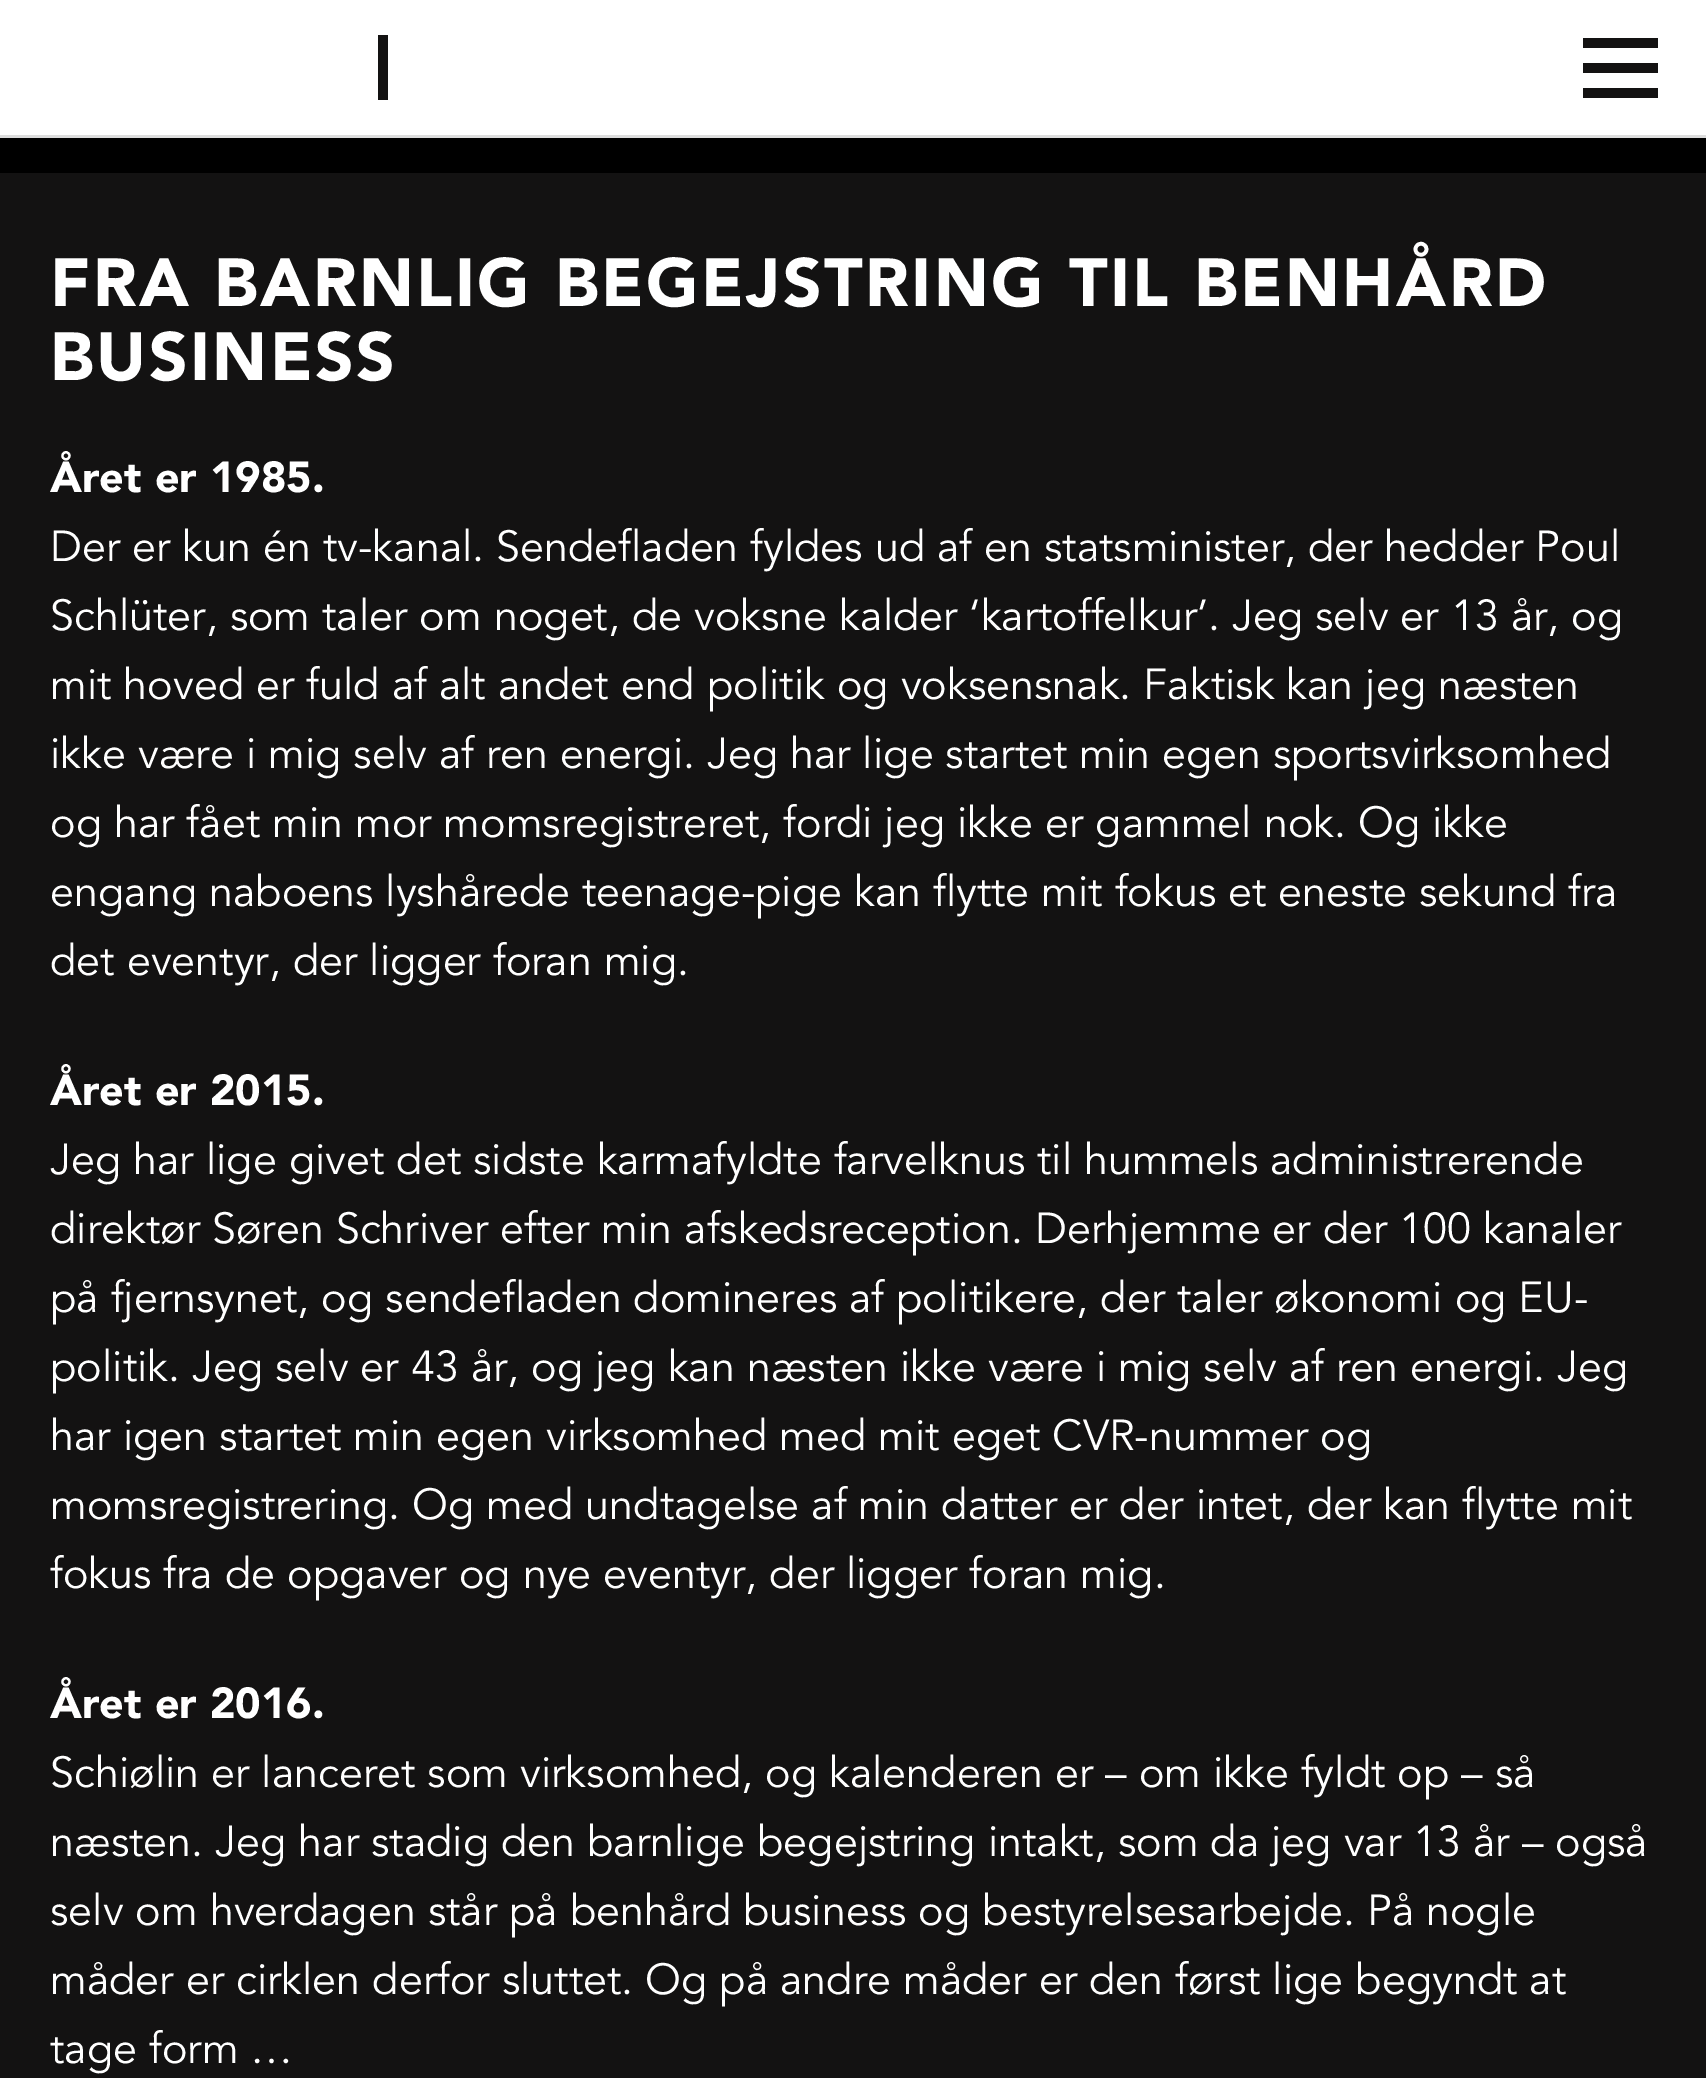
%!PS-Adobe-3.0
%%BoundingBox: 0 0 1706 2078
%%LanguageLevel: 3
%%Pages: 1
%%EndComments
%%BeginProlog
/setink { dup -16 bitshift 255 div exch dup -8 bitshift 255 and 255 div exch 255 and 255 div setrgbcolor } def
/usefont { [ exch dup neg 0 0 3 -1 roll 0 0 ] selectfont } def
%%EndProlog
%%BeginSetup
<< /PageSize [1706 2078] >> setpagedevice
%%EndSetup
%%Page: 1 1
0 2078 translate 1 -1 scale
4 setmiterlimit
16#000000 setink
0 0 1706 2078 rectfill
[
    [0 0 1706 135 16#FFFFFF]
    [0 135 1706 3 16#DDDDDD]
    [378 35 10 65 16#131212]
    [1583 63 75 10 16#131212]
    [1583 38 75 10 16#131212]
    [1583 88 75 10 16#131212]
    [0 173 1706 1905 16#131212]
] { aload pop setink rectfill } forall
/Avenir-Regular 67.5 usefont
16#FFFFFF setink
50 306 moveto 2.5 0 (FRA BARNLIG BEGEJSTRING TIL BENHÅRD) ashow
50 380 moveto 2.5 0 (BUSINESS) ashow
/Avenir-Regular 43.1 usefont
50 492 moveto (Året er 1985.) show
/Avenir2-Regular 43.1 usefont
[
    [(Der er kun én tv-kanal. Sendefladen fyldes ud af en statsminister, der hedder Poul) 50 561]
    [(Schlüter, som taler om noget, de voksne kalder ‘kartoffelkur’. Jeg selv er 13 år, og) 50 630]
    [(mit hoved er fuld af alt andet end politik og voksensnak. Faktisk kan jeg næsten) 50 699]
    [(ikke være i mig selv af ren energi. Jeg har lige startet min egen sportsvirksomhed) 50 768]
    [(og har fået min mor momsregistreret, fordi jeg ikke er gammel nok. Og ikke) 50 837]
    [(engang naboens lyshårede teenage-pige kan flytte mit fokus et eneste sekund fra) 50 906]
    [(det eventyr, der ligger foran mig.) 50 975]
] { aload pop moveto show } forall
/Avenir-Regular 43.1 usefont
50 1105 moveto (Året er 2015.) show
/Avenir2-Regular 43.1 usefont
[
    [(Jeg har lige givet det sidste karmafyldte farvelknus til hummels administrerende) 50 1174]
    [(direktør Søren Schriver efter min afskedsreception. Derhjemme er der 100 kanaler) 50 1243]
    [(på fjernsynet, og sendefladen domineres af politikere, der taler økonomi og EU-) 50 1312]
    [(politik. Jeg selv er 43 år, og jeg kan næsten ikke være i mig selv af ren energi. Jeg) 50 1381]
    [(har igen startet min egen virksomhed med mit eget CVR-nummer og) 50 1450]
    [(momsregistrering. Og med undtagelse af min datter er der intet, der kan flytte mit) 50 1519]
    [(fokus fra de opgaver og nye eventyr, der ligger foran mig.) 50 1588]
] { aload pop moveto show } forall
/Avenir-Regular 43.1 usefont
50 1718 moveto (Året er 2016.) show
/Avenir2-Regular 43.1 usefont
[
    [(Schiølin er lanceret som virksomhed, og kalenderen er – om ikke fyldt op – så) 50 1787]
    [(næsten. Jeg har stadig den barnlige begejstring intakt, som da jeg var 13 år – også) 50 1856]
    [(selv om hverdagen står på benhård business og bestyrelsesarbejde. På nogle) 50 1925]
    [(måder er cirklen derfor sluttet. Og på andre måder er den først lige begyndt at) 50 1994]
    [(tage form …) 50 2063]
] { aload pop moveto show } forall
showpage
%%EOF
